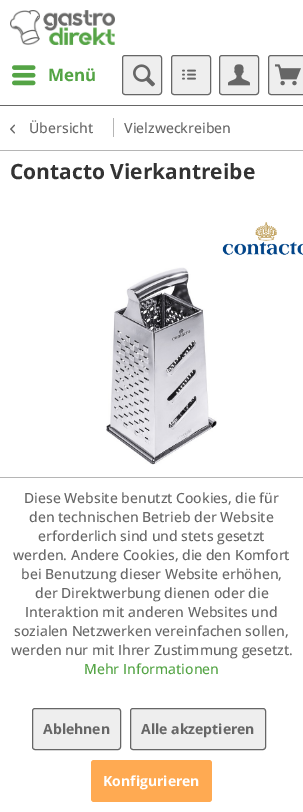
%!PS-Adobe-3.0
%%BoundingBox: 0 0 303 812
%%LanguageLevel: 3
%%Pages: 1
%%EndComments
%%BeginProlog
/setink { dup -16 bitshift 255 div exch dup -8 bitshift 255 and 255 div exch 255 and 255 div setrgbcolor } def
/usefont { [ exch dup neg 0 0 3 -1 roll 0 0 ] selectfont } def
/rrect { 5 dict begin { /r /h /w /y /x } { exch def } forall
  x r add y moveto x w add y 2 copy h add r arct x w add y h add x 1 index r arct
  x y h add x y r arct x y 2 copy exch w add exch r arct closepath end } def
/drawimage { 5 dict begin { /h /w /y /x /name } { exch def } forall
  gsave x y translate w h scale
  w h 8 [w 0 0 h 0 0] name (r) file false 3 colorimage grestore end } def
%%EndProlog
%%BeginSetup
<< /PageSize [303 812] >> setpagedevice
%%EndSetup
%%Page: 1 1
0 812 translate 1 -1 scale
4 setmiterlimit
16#FFFFFF setink
0 0 303 812 rectfill
16#666666 setink
0 105 303 1 rectfill
(img1.raw) 10 10 105 35 drawimage
(img2.raw) 12 65 24 21 drawimage
/OpenSans-Bold 17 usefont
16#54A445 setink
48 81 moveto (Menü) show
16#EEEEEE setink
122.5 55.5 39 39 2.5 rrect gsave fill grestore
16#666666 setink
stroke
(img3.raw) 133 64 22 23 drawimage
16#EEEEEE setink
171.5 55.5 39 39 2.5 rrect gsave fill grestore
16#666666 setink
stroke
(img4.raw) 182 69 14 11 drawimage
16#EEEEEE setink
219.5 55.5 39 39 2.5 rrect gsave fill grestore
16#666666 setink
stroke
(img5.raw) 228 64 22 22 drawimage
16#EEEEEE setink
269 56 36 38 2 rrect fill
16#666666 setink
268.5 55.5 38 39 2.5 rrect stroke
(img6.raw) 275 64 26 22 drawimage
16#B5B5B5 setink
0 150 303 1 rectfill
(img7.raw) 10 124 5 10 drawimage
/OpenSans-Medium 14 usefont
16#666666 setink
29 133 moveto (Übersicht) show
16#B5B5B5 setink
113 118 1 19 rectfill
16#666666 setink
124 133 moveto (Vielzweckreiben) show
/OpenSans-Bold 21 usefont
16#333333 setink
10 179 moveto (Contacto Vierkantreibe) show
(img8.raw) 222 222 81 33 drawimage
(img9.raw) 106 267 111 198 drawimage
16#B5B5B5 setink
0 477 303 1 rectfill
/OpenSans-Medium 14 usefont
16#666666 setink
[
    [(Diese Website benutzt Cookies, die für) 24 503]
    [(den technischen Betrieb der Website) 29 522]
    [(erforderlich sind und stets gesetzt) 38 541]
    [(werden. Andere Cookies, die den Komfort) 13 560]
    [(bei Benutzung dieser Website erhöhen,) 21 579]
    [(der Direktwerbung dienen oder die) 35 598]
    [(Interaktion mit anderen Websites und) 25 617]
    [(sozialen Netzwerken vereinfachen sollen,) 14 636]
    [(werden nur mit Ihrer Zustimmung gesetzt.) 11 655]
] { aload pop moveto show } forall
16#54A445 setink
84 674 moveto (Mehr Informationen) show
16#EEEEEE setink
32.5 708.5 88 41 2.5 rrect gsave fill grestore
16#666666 setink
stroke
/OpenSans-Bold 14 usefont
43 734 moveto (Ablehnen) show
16#EEEEEE setink
130.5 708.5 135 41 2.5 rrect gsave fill grestore
16#666666 setink
stroke
141 734 moveto (Alle akzeptieren) show
16#FFAA52 setink
91 760 121 42 3 rrect fill
16#FFFFFF setink
103 786 moveto (Konfigurieren) show
showpage
%%EOF
